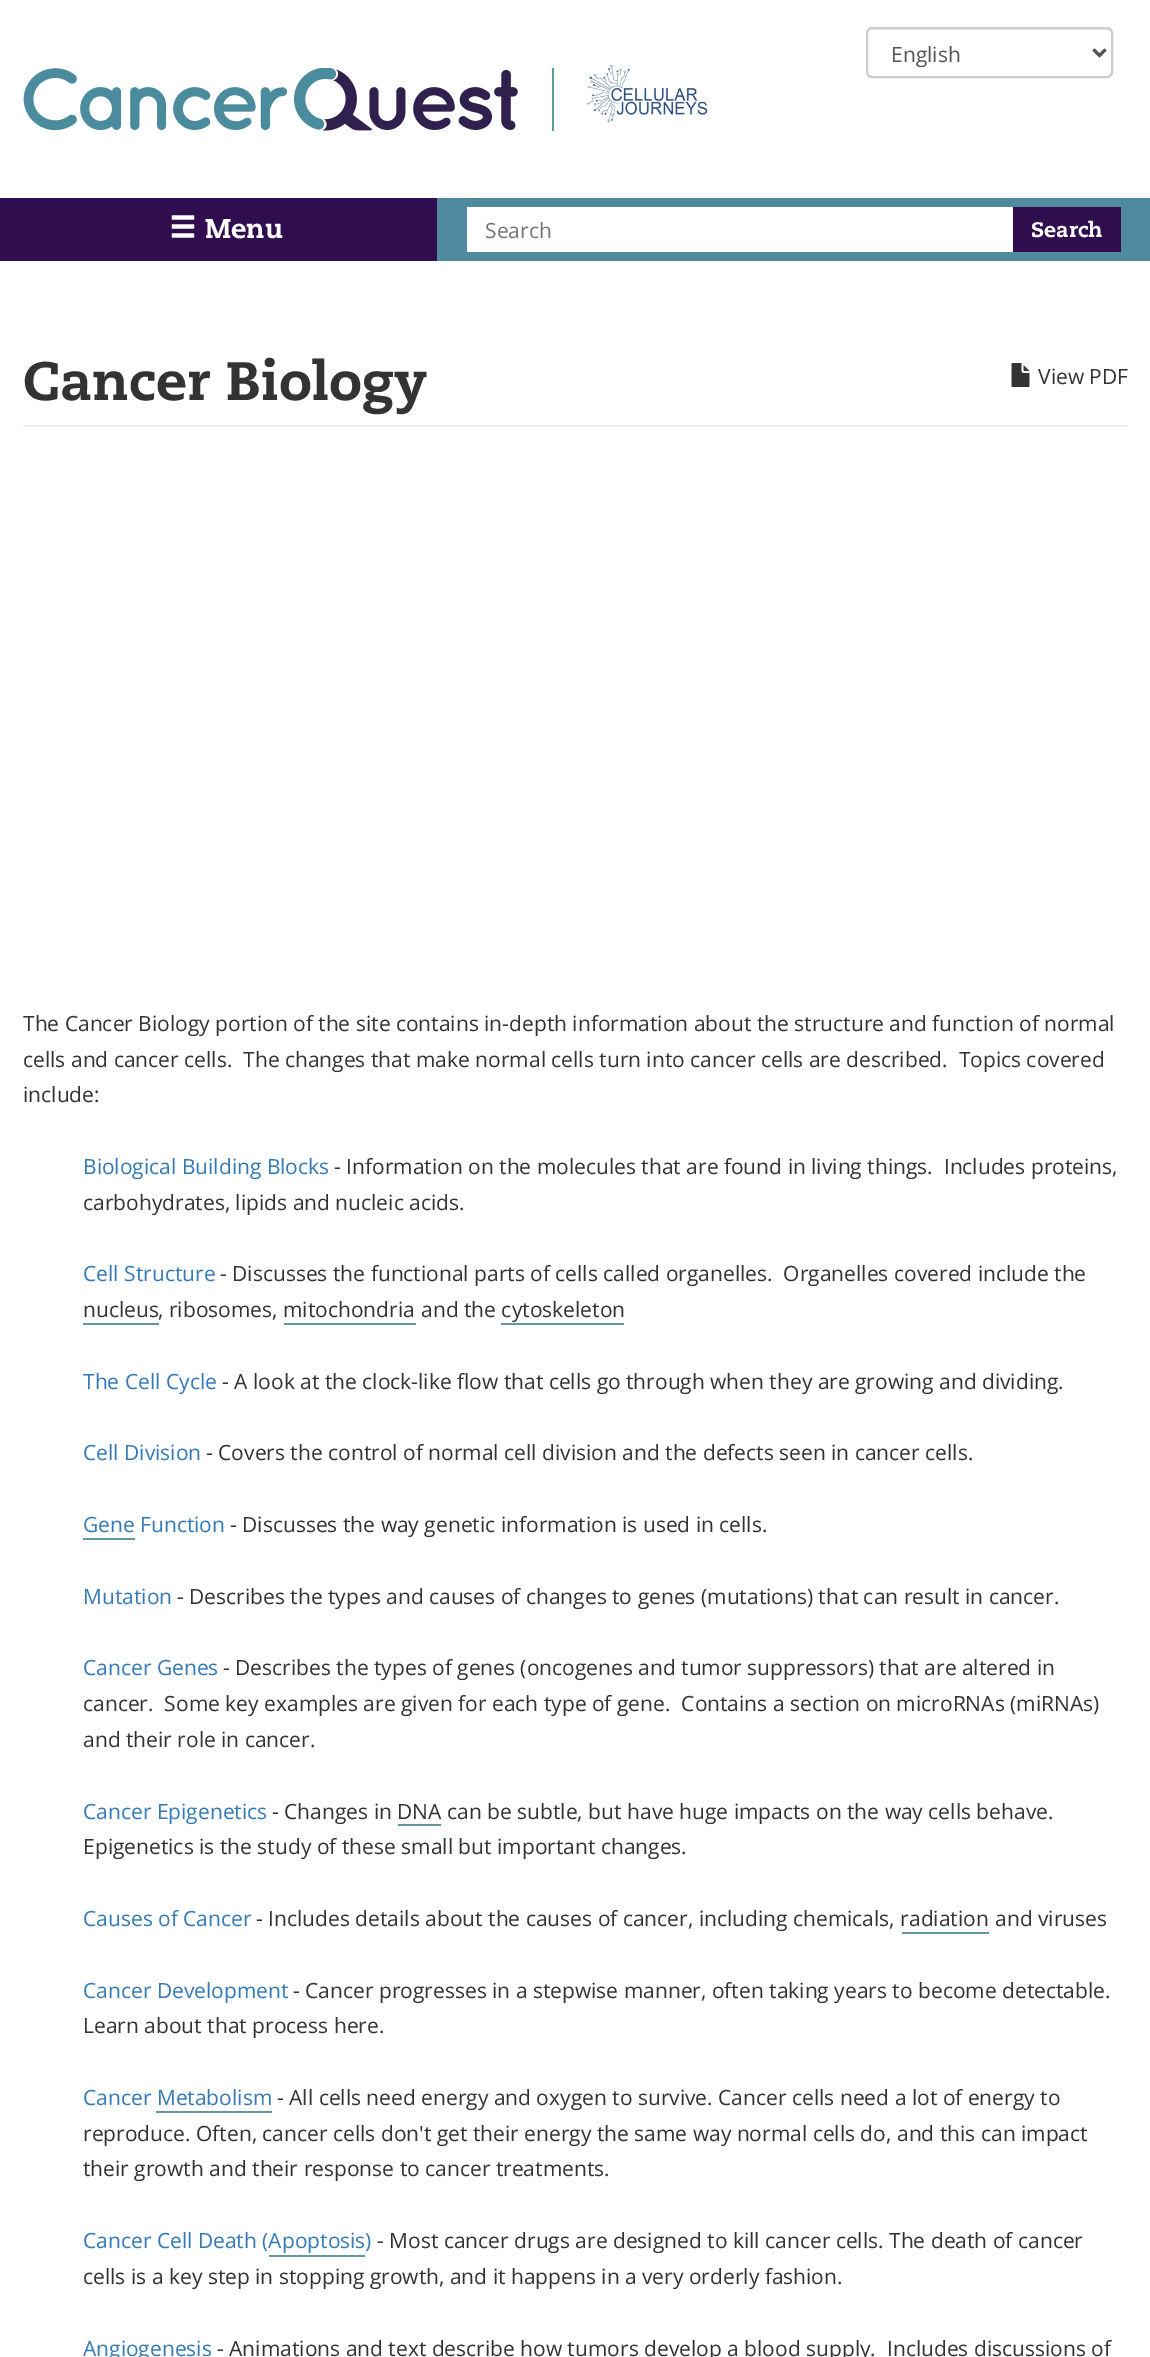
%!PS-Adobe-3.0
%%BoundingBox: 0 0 1150 2357
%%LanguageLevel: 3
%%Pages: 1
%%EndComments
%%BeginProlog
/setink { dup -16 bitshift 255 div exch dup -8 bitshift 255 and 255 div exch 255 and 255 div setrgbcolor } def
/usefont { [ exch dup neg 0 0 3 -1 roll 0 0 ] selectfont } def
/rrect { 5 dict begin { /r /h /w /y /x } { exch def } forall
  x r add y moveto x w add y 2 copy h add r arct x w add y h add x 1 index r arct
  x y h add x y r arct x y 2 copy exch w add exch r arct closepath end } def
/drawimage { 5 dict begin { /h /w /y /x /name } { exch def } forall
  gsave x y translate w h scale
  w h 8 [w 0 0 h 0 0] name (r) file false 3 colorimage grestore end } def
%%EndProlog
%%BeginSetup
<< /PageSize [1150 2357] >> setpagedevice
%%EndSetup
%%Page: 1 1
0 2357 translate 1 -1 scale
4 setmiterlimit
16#FFFFFF setink
0 0 1150 2357 rectfill
16#ECECEC setink
872 30 moveto 1107 30 lineto 1109 30 1112 32 1112 34 curveto 1112 31 1110 29 1107 29 curveto 872 29 lineto 869 29 867 31 867 34 curveto 867 32 869 30 872 30 curveto closepath fill
16#CCCCCC setink
2 setlinewidth
867 28 245 49 5 rrect stroke
16#555555 setink
3 setlinewidth
1093.5 49.5 moveto 1099.5 55.5 lineto 1105.5 49.5 lineto stroke
/OpenSans-Regular 21 usefont
891 62 moveto (English) show
16#629999 setink
552 68 2 63 rectfill
(img1.raw) 23 68 495 63 drawimage
(img2.raw) 587 65 121 58 drawimage
16#300D4E setink
0 198 437 63 rectfill
(img3.raw) 171 215 24 23 drawimage
/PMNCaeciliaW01-Black 27 usefont
16#FFFFFF setink
205 238 moveto (Menu) show
16#508A9F setink
437 198 713 63 rectfill
16#FFFFFF setink
467 207 546 45 rectfill
/OpenSans-Regular 21 usefont
16#757575 setink
485 238 moveto (Search) show
16#300D4E setink
1013 207 108 45 rectfill
/PMNCaeciliaW01-Black 21 usefont
16#FFFFFF setink
1031 237 moveto (Search) show
16#EEEEEE setink
23 425 1105 2 rectfill
/PMNCaeciliaW01-Black 54 usefont
16#333333 setink
23 400 moveto (Cancer Biology) show
/OpenSans-Regular 21 usefont
[
    [(The Cancer Biology portion of the site contains in-depth information about the structure and function of normal) 23 1031]
    [(cells and cancer cells.  The changes that make normal cells turn into cancer cells are described.  Topics covered) 23 1067]
    [(include:) 23 1102]
] { aload pop moveto show } forall
16#337AB7 setink
83 1174 moveto (Biological Building Blocks) show
16#333333 setink
334 1174 moveto (- Information on the molecules that are found in living things.  Includes proteins,) show
83 1210 moveto (carbohydrates, lipids and nucleic acids.) show
16#337AB7 setink
83 1281 moveto (Cell Structure) show
16#333333 setink
220 1281 moveto (- Discusses the functional parts of cells called organelles.  Organelles covered include the) show
83 1317 moveto (nucleus) show
16#629999 setink
83 1323 76 2 rectfill
16#333333 setink
158 1317 moveto (, ribosomes, mitochondria) show
421 1317 moveto (and the cytoskeleton) show
16#629999 setink
284 1323 132 2 rectfill
501 1323 123 2 rectfill
16#337AB7 setink
83 1389 moveto (The Cell Cycle) show
16#333333 setink
222 1389 moveto (- A look at the clock-like flow that cells go through when they are growing and dividing.) show
16#337AB7 setink
83 1460 moveto (Cell Division) show
16#333333 setink
206 1460 moveto (- Covers the control of normal cell division and the defects seen in cancer cells.) show
16#337AB7 setink
83 1532 moveto (Gene) show
16#629999 setink
83 1538 52 2 rectfill
16#337AB7 setink
140 1532 moveto (Function) show
16#333333 setink
230 1532 moveto (- Discusses the way genetic information is used in cells.) show
16#337AB7 setink
83 1604 moveto (Mutation) show
16#333333 setink
177 1604 moveto (- Describes the types and causes of changes to genes \(mutations\) that can result in cancer.) show
16#337AB7 setink
83 1675 moveto (Cancer Genes) show
16#333333 setink
[
    [(- Describes the types of genes \(oncogenes and tumor suppressors\) that are altered in) 223 1675]
    [(cancer.  Some key examples are given for each type of gene.  Contains a section on microRNAs \(miRNAs\)) 83 1711]
    [(and their role in cancer.) 83 1747]
] { aload pop moveto show } forall
16#337AB7 setink
83 1819 moveto (Cancer Epigenetics) show
16#333333 setink
272 1819 moveto (- Changes in DNA) show
447 1819 moveto (can be subtle, but have huge impacts on the way cells behave.) show
16#629999 setink
398 1824 43 2 rectfill
16#333333 setink
83 1854 moveto (Epigenetics is the study of these small but important changes.) show
16#337AB7 setink
83 1926 moveto (Causes of Cancer) show
16#333333 setink
256 1926 moveto (- Includes details about the causes of cancer, including chemicals, radiation) show
995 1926 moveto (and viruses) show
16#629999 setink
902 1932 87 2 rectfill
16#337AB7 setink
83 1998 moveto (Cancer Development) show
16#333333 setink
293 1998 moveto (- Cancer progresses in a stepwise manner, often taking years to become detectable.) show
83 2033 moveto (Learn about that process here.) show
16#337AB7 setink
83 2105 moveto (Cancer Metabolism) show
16#629999 setink
156 2111 116 2 rectfill
16#333333 setink
[
    [(- All cells need energy and oxygen to survive. Cancer cells need a lot of energy to) 277 2105]
    [(reproduce. Often, cancer cells don't get their energy the same way normal cells do, and this can impact) 83 2141]
    [(their growth and their response to cancer treatments.) 83 2176]
] { aload pop moveto show } forall
16#337AB7 setink
83 2248 moveto (Cancer Cell Death \(Apoptosis) show
16#629999 setink
269 2255 96 2 rectfill
16#337AB7 setink
365 2248 moveto (\)) show
16#333333 setink
377 2248 moveto (- Most cancer drugs are designed to kill cancer cells. The death of cancer) show
83 2284 moveto (cells is a key step in stopping growth, and it happens in a very orderly fashion.) show
16#337AB7 setink
83 2356 moveto (Angiogenesis) show
16#333333 setink
217 2356 moveto (- Animations and text describe how tumors develop a blood supply.  Includes discussions of) show
(img4.raw) 1011 363 19 24 drawimage
1038 384 moveto (View PDF) show
showpage
%%EOF
